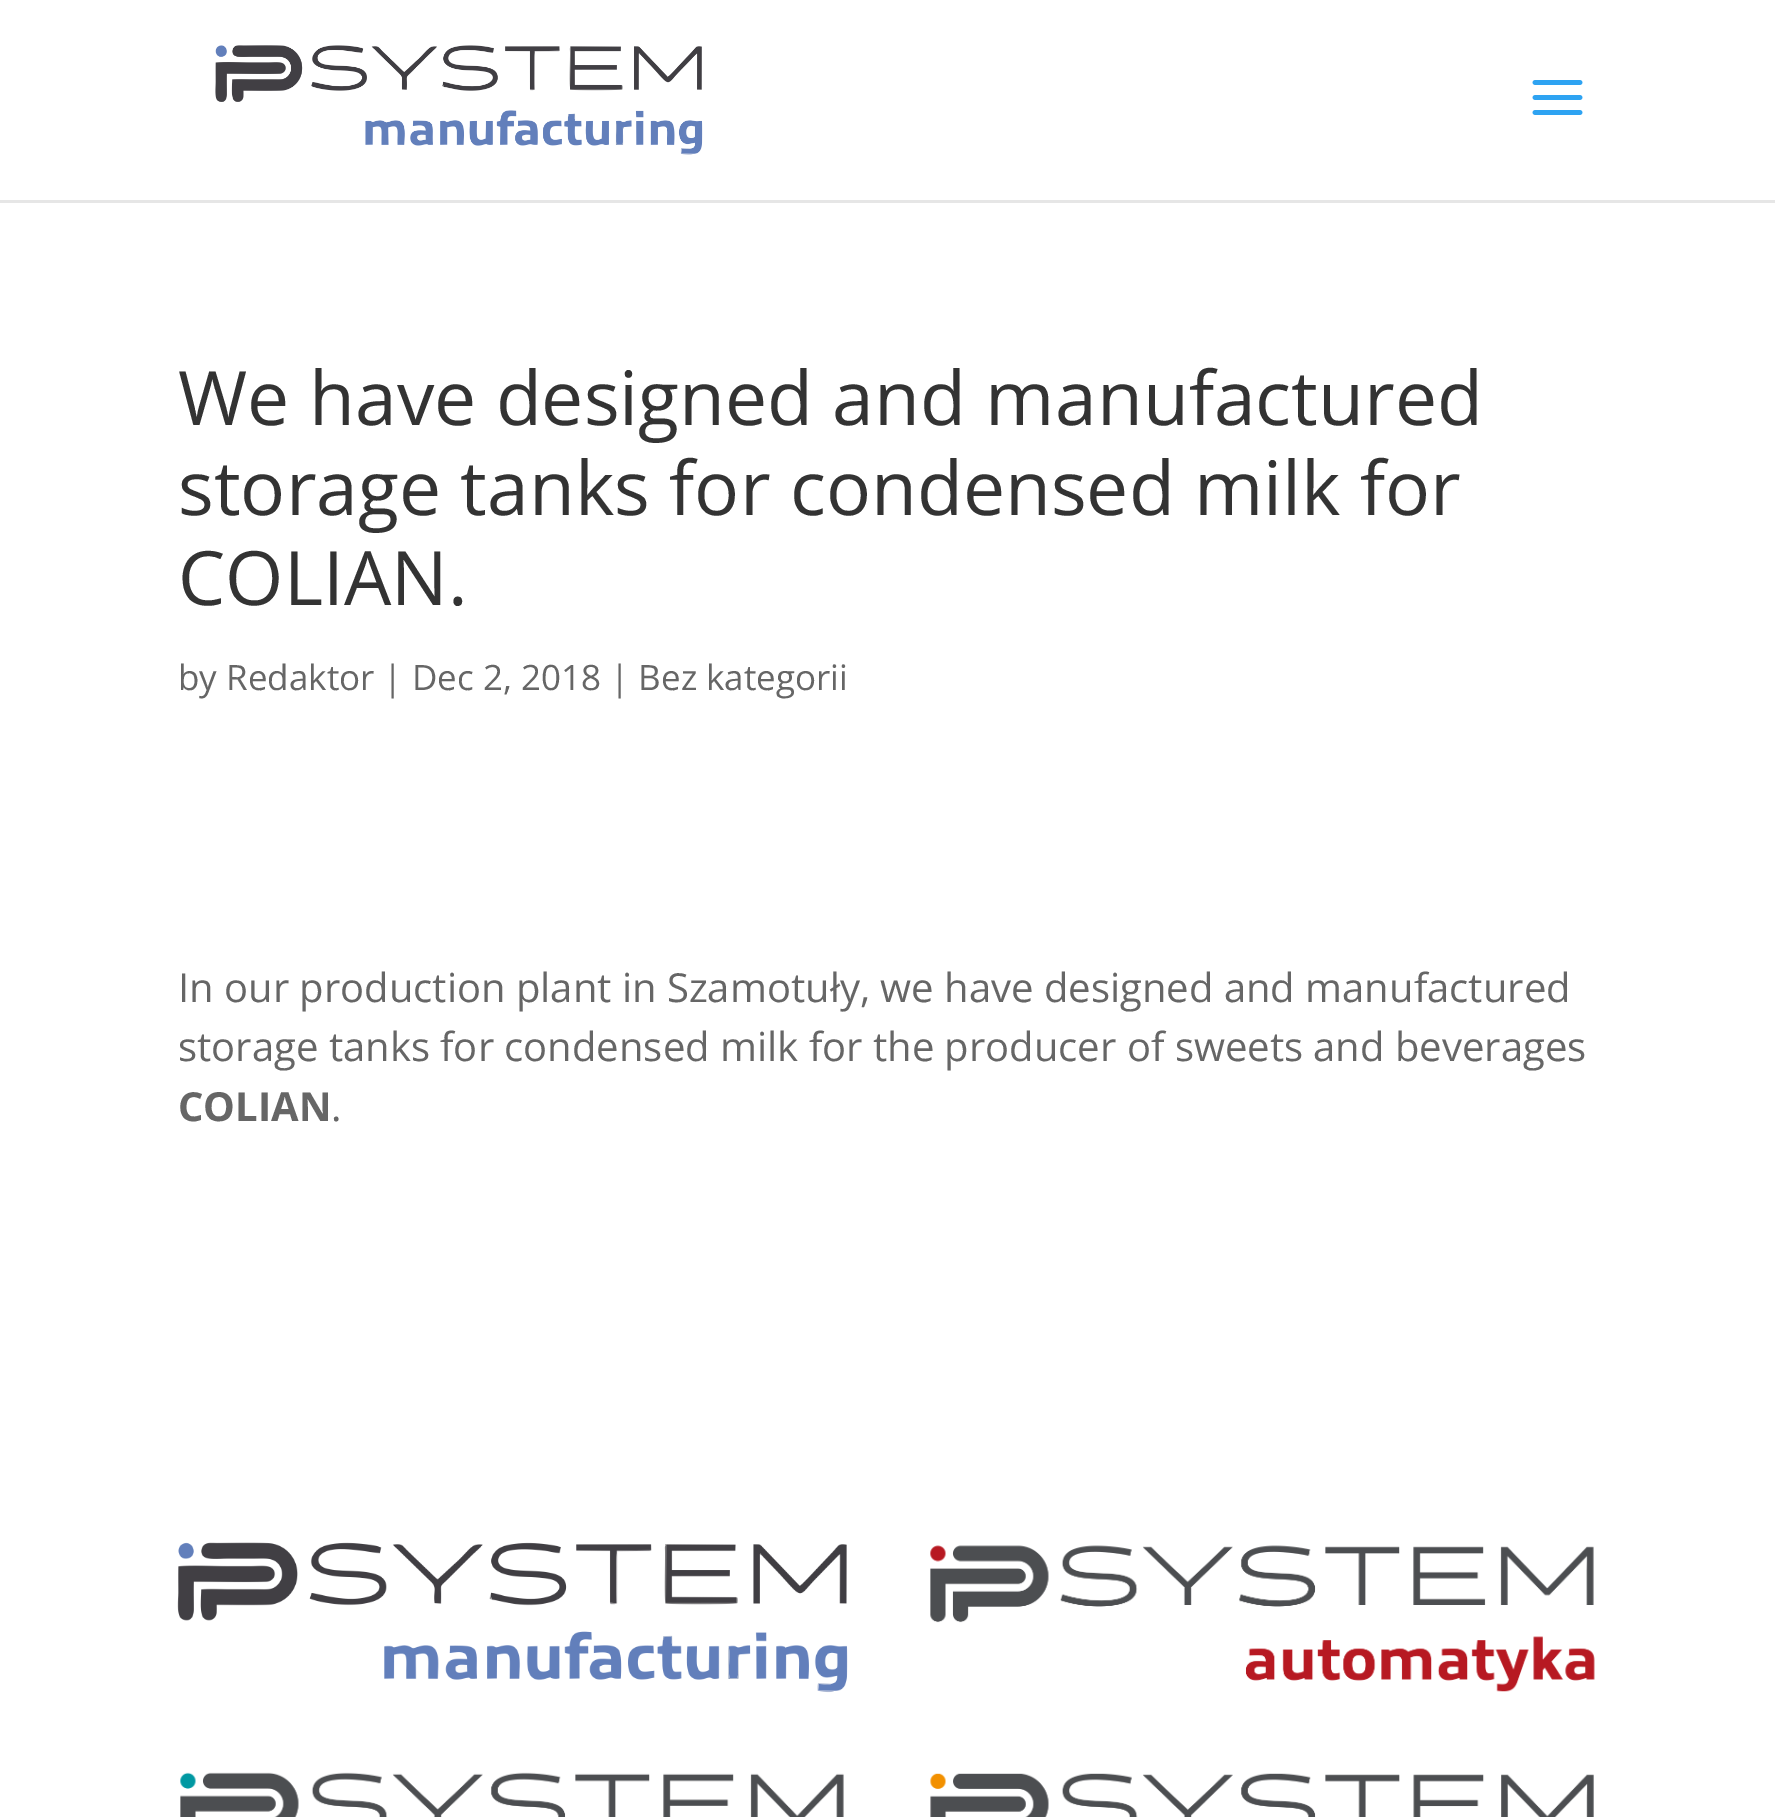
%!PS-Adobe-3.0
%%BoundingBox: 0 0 1775 1817
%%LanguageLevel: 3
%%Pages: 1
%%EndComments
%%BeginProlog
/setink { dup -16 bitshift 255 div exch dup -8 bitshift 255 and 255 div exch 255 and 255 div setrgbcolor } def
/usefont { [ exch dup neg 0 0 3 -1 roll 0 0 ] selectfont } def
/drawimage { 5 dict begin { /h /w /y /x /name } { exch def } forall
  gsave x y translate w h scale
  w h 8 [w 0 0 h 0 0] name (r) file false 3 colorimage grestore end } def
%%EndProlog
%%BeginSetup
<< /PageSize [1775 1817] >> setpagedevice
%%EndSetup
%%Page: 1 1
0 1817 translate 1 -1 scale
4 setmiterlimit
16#FFFFFF setink
0 0 1775 1817 rectfill
16#E6E6E6 setink
0 200 1775 3 rectfill
(img1.raw) 215 45 488 110 drawimage
(img2.raw) 1532 80 51 35 drawimage
/OpenSans-Regular 75 usefont
16#333333 setink
[
    [(We have designed and manufactured) 178 425]
    [(storage tanks for condensed milk for) 178 515]
    [(COLIAN.) 178 605]
] { aload pop moveto show } forall
/OpenSans-Regular 35 usefont
16#666666 setink
178 690 moveto (by Redaktor | Dec 2, 2018 | Bez kategorii) show
/OpenSans-Regular 40 usefont
178 1002 moveto (In our production plant in Szamotuły, we have designed and manufactured) show
178 1061 moveto (storage tanks for condensed milk for the producer of sweets and beverages) show
/OpenSans-Bold 40 usefont
178 1121 moveto (COLIAN) show
/OpenSans-Regular 40 usefont
331 1121 moveto (.) show
(img3.raw) 177 1542 671 151 drawimage
(img4.raw) 930 1545 665 147 drawimage
(img5.raw) 180 1772 664 45 drawimage
(img6.raw) 930 1773 664 44 drawimage
showpage
%%EOF
